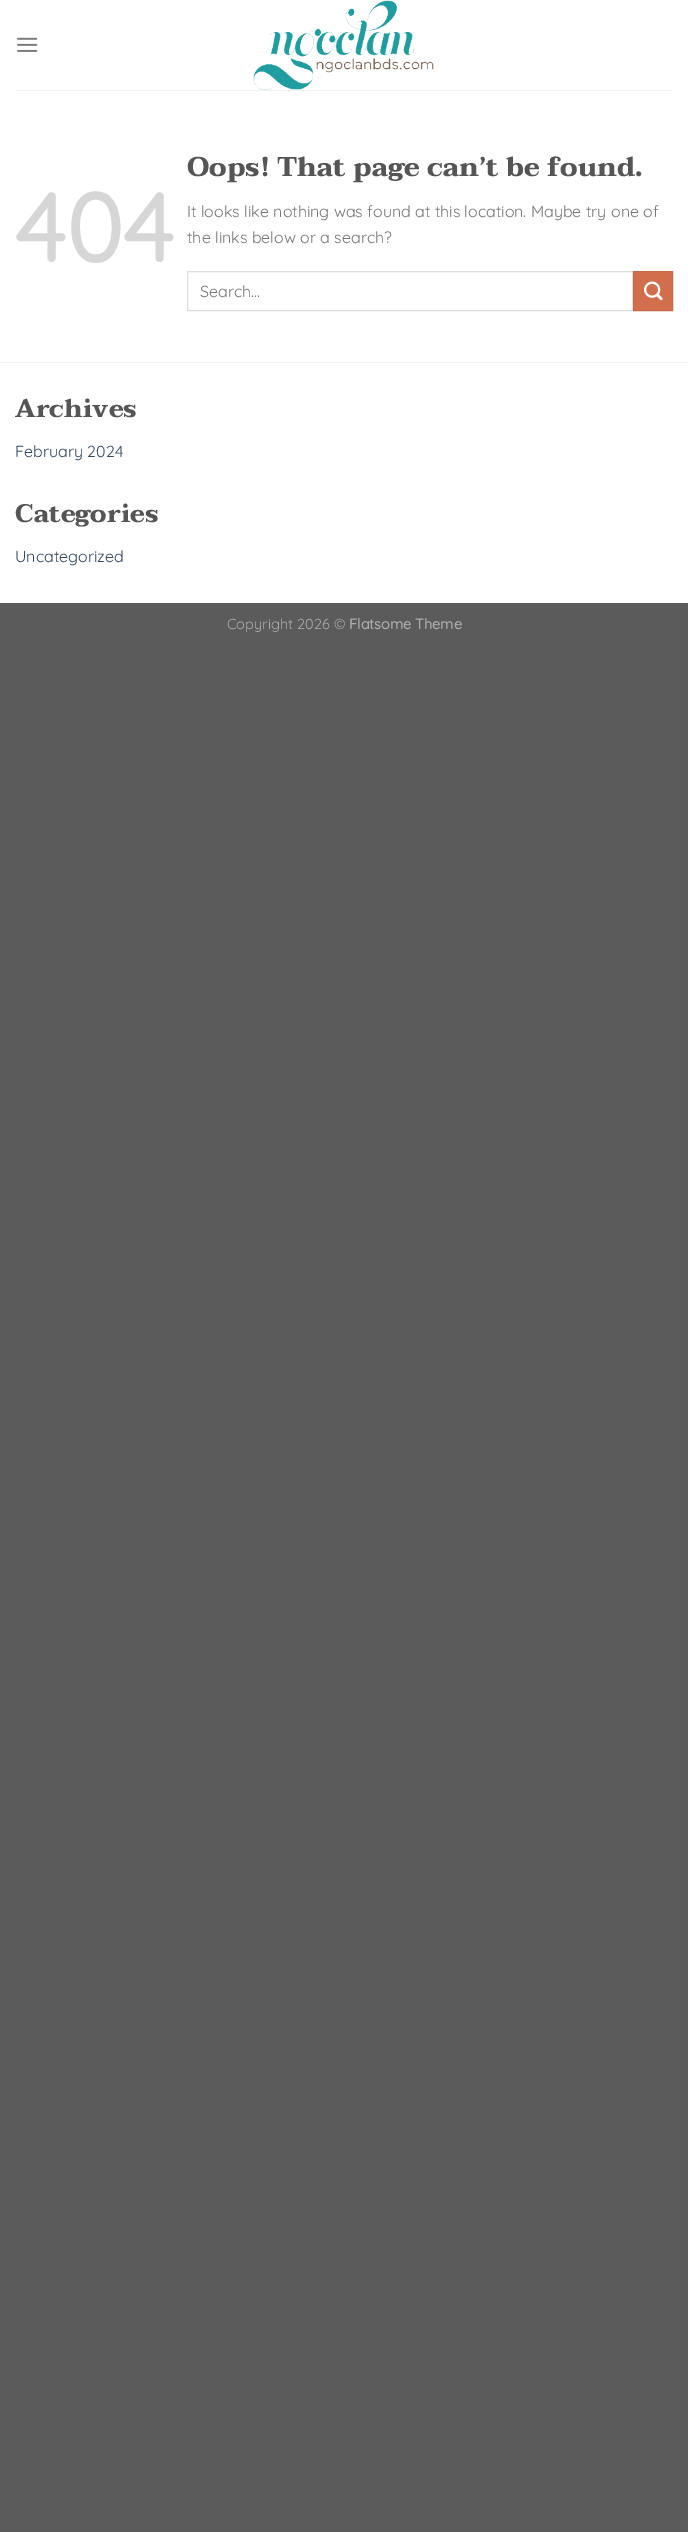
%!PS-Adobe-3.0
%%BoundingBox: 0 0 688 2532
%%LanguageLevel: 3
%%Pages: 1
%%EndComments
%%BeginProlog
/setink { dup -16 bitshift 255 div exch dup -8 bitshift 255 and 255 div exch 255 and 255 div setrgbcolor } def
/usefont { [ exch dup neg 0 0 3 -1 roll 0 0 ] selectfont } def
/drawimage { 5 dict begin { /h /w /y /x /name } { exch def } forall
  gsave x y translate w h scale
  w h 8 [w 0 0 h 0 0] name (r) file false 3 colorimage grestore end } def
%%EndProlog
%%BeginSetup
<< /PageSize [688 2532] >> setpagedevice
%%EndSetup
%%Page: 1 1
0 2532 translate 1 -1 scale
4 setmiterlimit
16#5B5B5B setink
0 0 688 2532 rectfill
16#FFFFFF setink
0 0 688 603 rectfill
(img1.raw) 17 37 21 15 drawimage
(img2.raw) 253 0 181 90 drawimage
16#F1F1F1 setink
15 90 658 1 rectfill
/Quicksand-Bold 96 usefont
16#D6D6D6 setink
15 262 moveto (404) show
/Taviraj-Bold 27.25 usefont
16#555555 setink
187 176 moveto (Oops! That page can’t be found.) show
/Quicksand-Regular 16 usefont
16#777777 setink
187 217 moveto (It looks like nothing was found at this location. Maybe try one of) show
187 243 moveto (the links below or a search?) show
16#DDDDDD setink
187.5 271.5 445 39 rectstroke
16#777777 setink
200 297 moveto (Search…) show
16#D26E4B setink
633.5 271.5 moveto 672.5 271.5 lineto 672.5 310.5 lineto 633.5 310.5 lineto closepath gsave fill grestore
16#C86947 setink
stroke
(img3.raw) 644 281 19 20 drawimage
16#F2F2F2 setink
0 362 688 1 rectfill
/Taviraj-Bold 25.5 usefont
16#555555 setink
15 417 moveto (Archives) show
/Quicksand-Regular 16 usefont
16#334862 setink
15 457 moveto (February 2024) show
/Taviraj-Bold 25.5 usefont
16#555555 setink
15 522 moveto (Categories) show
/Quicksand-Regular 16 usefont
16#334862 setink
15 562 moveto (Uncategorized) show
/Quicksand-Regular 14.5 usefont
16#ADADAD setink
227 629 moveto (Copyright 2026 ©) show
/Quicksand-Bold 14.5 usefont
349 629 moveto (Flatsome Theme) show
showpage
%%EOF
